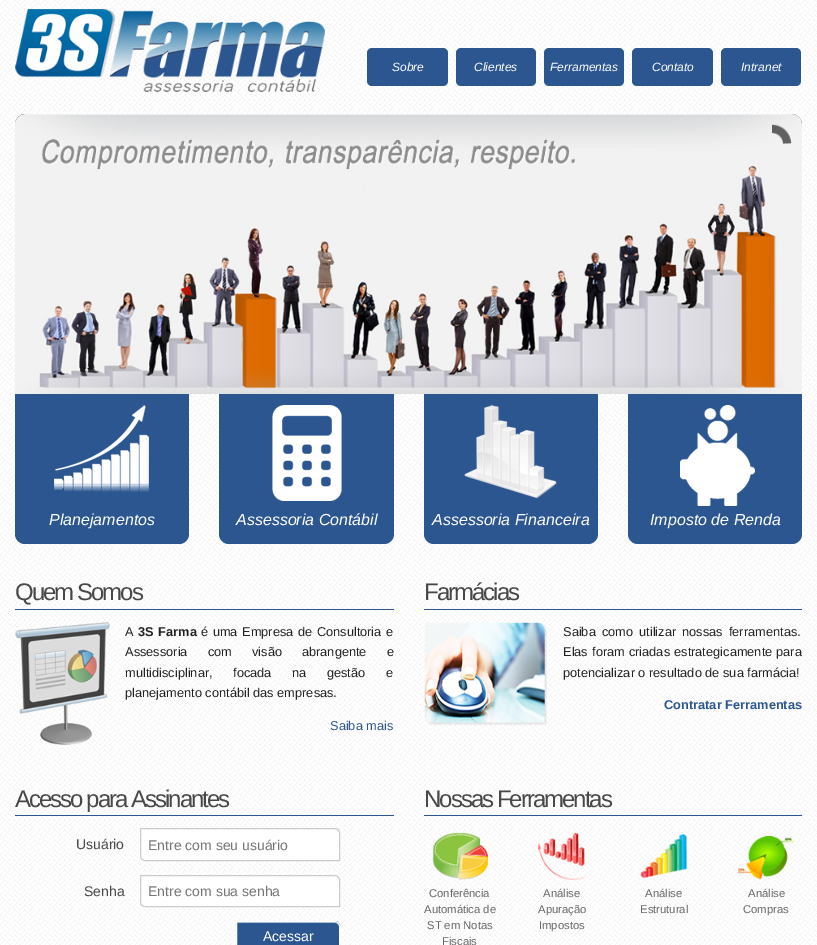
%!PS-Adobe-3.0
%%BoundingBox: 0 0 817 945
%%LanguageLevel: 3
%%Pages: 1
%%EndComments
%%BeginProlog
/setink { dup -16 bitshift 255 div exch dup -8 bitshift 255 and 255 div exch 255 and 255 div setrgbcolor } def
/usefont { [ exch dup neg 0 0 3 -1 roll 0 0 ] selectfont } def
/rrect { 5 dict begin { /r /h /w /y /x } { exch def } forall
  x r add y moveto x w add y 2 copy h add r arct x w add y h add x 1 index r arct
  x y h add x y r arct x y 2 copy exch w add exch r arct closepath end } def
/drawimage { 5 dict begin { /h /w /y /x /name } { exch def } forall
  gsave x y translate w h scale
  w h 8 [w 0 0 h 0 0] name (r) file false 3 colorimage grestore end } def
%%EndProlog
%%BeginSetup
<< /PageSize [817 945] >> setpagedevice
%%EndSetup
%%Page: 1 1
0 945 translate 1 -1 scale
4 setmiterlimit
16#FFFFFF setink
0 0 817 945 rectfill
(img1.raw) 0 0 817 945 drawimage
(img2.raw) 15 9 310 83 drawimage
16#2B5690 setink
367 48 81 38 5 rrect fill
/LiberationSans-Italic 12 usefont
16#FFFFFF setink
392 71 moveto (Sobre) show
16#2B5690 setink
456 48 80 38 5 rrect fill
16#FFFFFF setink
474 71 moveto (Clientes) show
16#2B5690 setink
544 48 80 38 5 rrect fill
16#FFFFFF setink
550 71 moveto (Ferramentas) show
16#2B5690 setink
632 48 81 38 5 rrect fill
16#FFFFFF setink
652 71 moveto (Contato) show
16#2B5690 setink
721 48 80 38 5 rrect fill
16#FFFFFF setink
741 71 moveto (Intranet) show
(img3.raw) 15 114 787 10 drawimage
(img4.raw) 15 114 787 280 drawimage
(img5.raw) 772 124 20 20 drawimage
16#2B5690 setink
15 394 moveto 189 394 lineto 189 534 lineto 189 539.5 184.5 544 179 544 curveto 25 544 lineto 19.5 544 15 539.5 15 534 curveto closepath fill
(img6.raw) 54 405 95 87 drawimage
/LiberationSans-Italic 16 usefont
16#FFFFFF setink
49 525 moveto (Planejamentos) show
16#2B5690 setink
219 394 moveto 394 394 lineto 394 534 lineto 394 539.5 389.5 544 384 544 curveto 229 544 lineto 223.5 544 219 539.5 219 534 curveto closepath fill
(img7.raw) 272 405 70 96 drawimage
16#FFFFFF setink
236 525 moveto (Assessoria Contábil) show
16#2B5690 setink
424 394 moveto 598 394 lineto 598 534 lineto 598 539.5 593.5 544 588 544 curveto 434 544 lineto 428.5 544 424 539.5 424 534 curveto closepath fill
(img8.raw) 464 405 93 94 drawimage
16#FFFFFF setink
432 525 moveto (Assessoria Financeira) show
16#2B5690 setink
628 394 moveto 802 394 lineto 802 534 lineto 802 539.5 797.5 544 792 544 curveto 638 544 lineto 632.5 544 628 539.5 628 534 curveto closepath fill
(img9.raw) 680 405 75 101 drawimage
16#FFFFFF setink
650 525 moveto (Imposto de Renda) show
16#2B5690 setink
15 609 379 1 rectfill
/LiberationSans-Regular 24 usefont
16#484848 setink
15 600 moveto -2 0 (Quem Somos) ashow
(img10.raw) 15 622 95 123 drawimage
/LiberationSans-Regular 12.8 usefont
16#222222 setink
125 636 moveto (A) show
/LiberationSans-Bold 12.8 usefont
138 636 moveto 1 0 32 (3S Farma) widthshow
/LiberationSans-Regular 12.8 usefont
201 636 moveto 1 0 32 (é uma Empresa de Consultoria e) widthshow
125 656 moveto 16.5 0 32 (Assessoria com visão abrangente e) widthshow
125 677 moveto 17 0 32 (multidisciplinar, focada na gestão e) widthshow
125 697 moveto (planejamento contábil das empresas.) show
16#2B5690 setink
330 730 moveto (Saiba mais) show
424 609 378 1 rectfill
/LiberationSans-Regular 24 usefont
16#484848 setink
424 600 moveto -2 0 (Farmácias) ashow
(img11.raw) 424 622 123 104 drawimage
/LiberationSans-Regular 12.8 usefont
16#222222 setink
563 636 moveto 2.5 0 32 (Saiba como utilizar nossas ferramentas.) widthshow
563 656 moveto 0.5 0 32 (Elas foram criadas estrategicamente para) widthshow
563 677 moveto (potencializar o resultado de sua farmácia!) show
/LiberationSans-Bold 12.8 usefont
16#2B5690 setink
664 709 moveto (Contratar Ferramentas) show
15 815 379 1 rectfill
/LiberationSans-Regular 24 usefont
16#484848 setink
15 807 moveto -2 0 (Acesso para Assinantes) ashow
/LiberationSans-Regular 14 usefont
76 849 moveto (Usuário) show
16#FFFFFF setink
140.5 828.5 moveto 335 828.5 lineto 337.5 828.5 339.5 830.5 339.5 833 curveto 339.5 860.5 lineto 145 860.5 lineto 142.5 860.5 140.5 858.5 140.5 856 curveto closepath gsave fill grestore
16#CCCCCC setink
stroke
16#757575 setink
148 850 moveto (Entre com seu usuário) show
16#484848 setink
84 896 moveto (Senha) show
16#FFFFFF setink
140.5 875.5 moveto 335 875.5 lineto 337.5 875.5 339.5 877.5 339.5 880 curveto 339.5 906.5 lineto 145 906.5 lineto 142.5 906.5 140.5 904.5 140.5 902 curveto closepath gsave fill grestore
16#CCCCCC setink
stroke
16#757575 setink
148 896 moveto (Entre com sua senha) show
16#2B5690 setink
236 921 moveto 335 921 lineto 338 921 340 923 340 926 curveto 340 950 lineto 241 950 lineto 238 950 236 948 236 945 curveto closepath fill
16#95ABC8 setink
237 923 moveto 335 923 lineto 337 923 339 925 339 927 curveto 339 926 lineto 339 924 337 922 335 922 curveto 237 922 lineto closepath fill
16#FFFFFF setink
236.5 921.5 moveto 335 921.5 lineto 337.5 921.5 339.5 923.5 339.5 926 curveto 339.5 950.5 lineto 241 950.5 lineto 238.5 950.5 236.5 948.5 236.5 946 curveto closepath stroke
263 941 moveto (Acessar) show
16#2B5690 setink
424 815 378 1 rectfill
/LiberationSans-Regular 24 usefont
16#484848 setink
424 807 moveto -2 0 (Nossas Ferramentas) ashow
(img12.raw) 432 832 56 48 drawimage
/LiberationSans-Regular 11.25 usefont
16#666666 setink
[
    [(Conferência) 429 897]
    [(Automática de) 424 913]
    [(ST em Notas) 427 929]
    [(Fiscais) 442 945]
] { aload pop moveto show } forall
(img13.raw) 538 832 47 48 drawimage
[
    [(Análise) 543 897]
    [(Apuração) 538 913]
    [(Impostos) 539 929]
] { aload pop moveto show } forall
(img14.raw) 640 834 48 45 drawimage
645 897 moveto (Análise) show
640 913 moveto (Estrutural) show
(img15.raw) 738 836 56 44 drawimage
748 897 moveto (Análise) show
743 913 moveto (Compras) show
showpage
%%EOF
